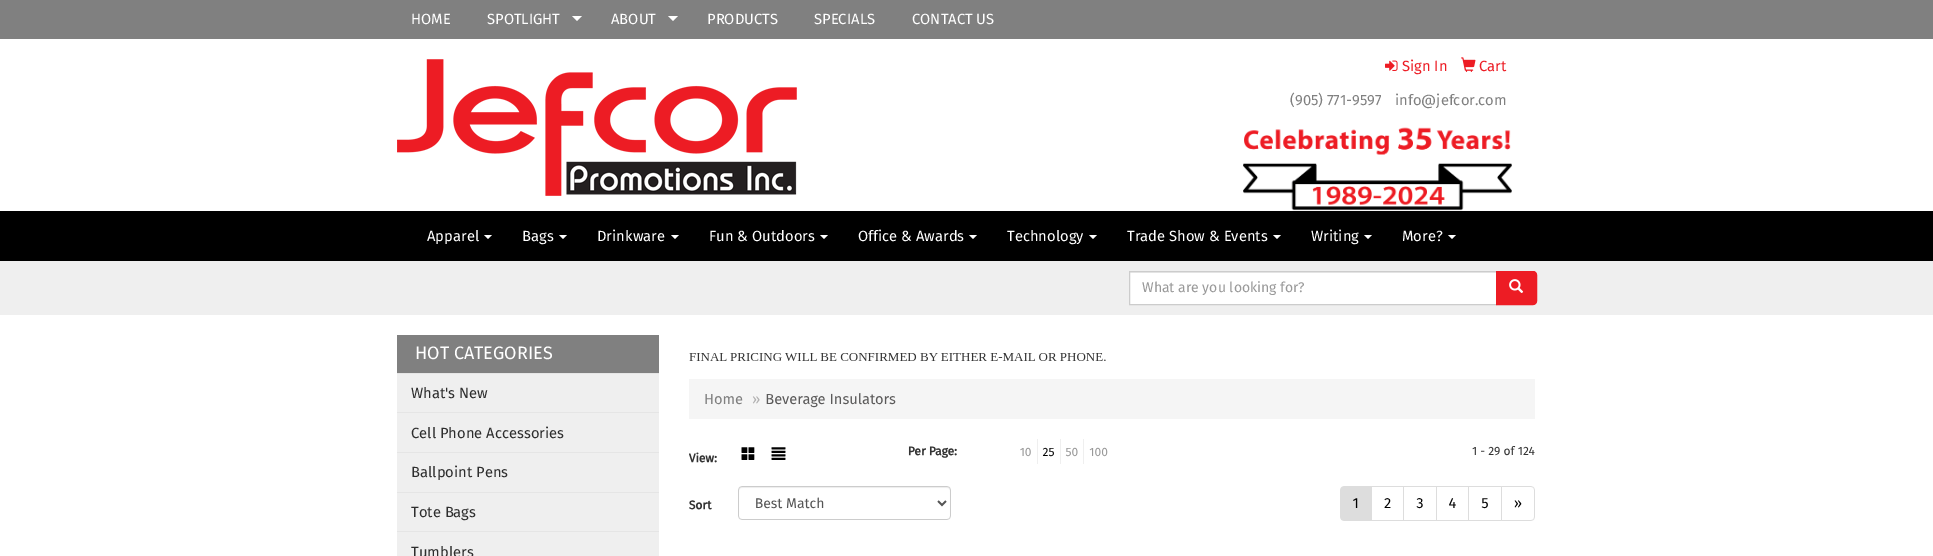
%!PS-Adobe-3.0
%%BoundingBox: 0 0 1933 556
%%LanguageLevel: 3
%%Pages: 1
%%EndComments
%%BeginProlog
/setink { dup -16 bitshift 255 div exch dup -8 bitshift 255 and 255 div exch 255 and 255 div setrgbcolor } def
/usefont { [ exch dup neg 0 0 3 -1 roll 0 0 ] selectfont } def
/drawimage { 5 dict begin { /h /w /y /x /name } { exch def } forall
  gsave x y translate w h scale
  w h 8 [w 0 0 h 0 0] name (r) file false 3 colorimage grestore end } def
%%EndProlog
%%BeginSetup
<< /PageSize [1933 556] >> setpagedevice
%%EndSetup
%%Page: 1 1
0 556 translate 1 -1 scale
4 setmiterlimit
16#FFFFFF setink
0 0 1933 556 rectfill
16#808080 setink
0 0 1933 39 rectfill
/FiraSans-Regular 14.75 usefont
16#FFFFFF setink
411 24 moveto (HOME) show
487 24 moveto (SPOTLIGHT) show
572 16 moveto 582 16 lineto 577 21 lineto closepath fill
611 24 moveto (ABOUT) show
668 16 moveto 678 16 lineto 673 21 lineto closepath fill
[
    [(PRODUCTS) 707 24]
    [(SPECIALS) 814 24]
    [(CONTACT US) 912 24]
] { aload pop moveto show } forall
(img1.raw) 397 59 400 137 drawimage
(img2.raw) 1385 60 13 11 drawimage
16#ED1C24 setink
1402 71 moveto (Sign In) show
(img3.raw) 1461 57 15 15 drawimage
1479 71 moveto (Cart) show
16#808080 setink
1290 105 moveto (\(905\) 771-9597) show
1395 105 moveto (info@jefcor.com) show
(img4.raw) 1243 127 269 84 drawimage
16#000000 setink
0 211 1933 50 rectfill
16#FFFFFF setink
427 241 moveto (Apparel) show
484 235 moveto 492 235 lineto 488 239 lineto closepath fill
522 241 moveto (Bags) show
559 235 moveto 567 235 lineto 563 239 lineto closepath fill
597 241 moveto (Drinkware) show
671 235 moveto 679 235 lineto 675 239 lineto closepath fill
709 241 moveto (Fun & Outdoors) show
820 235 moveto 828 235 lineto 824 239 lineto closepath fill
858 241 moveto (Office & Awards) show
969 235 moveto 977 235 lineto 973 239 lineto closepath fill
1007 241 moveto (Technology) show
1089 235 moveto 1097 235 lineto 1093 239 lineto closepath fill
1127 241 moveto (Trade Show & Events) show
1273 235 moveto 1281 235 lineto 1277 239 lineto closepath fill
1311 241 moveto (Writing) show
1364 235 moveto 1372 235 lineto 1368 239 lineto closepath fill
1402 241 moveto (More?) show
1448 235 moveto 1456 235 lineto 1452 239 lineto closepath fill
[
    [0 261 1933 54 16#EFEFEF]
    [1130 273 366 31 16#FFFFFF]
    [1130 272 366 1 16#ECECEC]
] { aload pop setink rectfill } forall
16#CCCCCC setink
1129.5 271.5 367 33 rectstroke
/FiraSans-Regular 14 usefont
16#999999 setink
1142 292 moveto (What are you looking for?) show
16#ED1C24 setink
1496.5 271.5 moveto 1533 271.5 lineto 1535 271.5 1536.5 273 1536.5 275 curveto 1536.5 301 lineto 1536.5 303 1535 304.5 1533 304.5 curveto 1496.5 304.5 lineto closepath gsave fill grestore
stroke
(img5.raw) 1509 279 15 14 drawimage
16#808080 setink
397 335 262 38 rectfill
/FiraSans-Regular 18 usefont
16#FFFFFF setink
415 359 moveto (HOT CATEGORIES) show
16#EFEFEF setink
397 374 262 38 rectfill
16#E5E5E5 setink
397 373 262 1 rectfill
/FiraSans-Regular 14.75 usefont
16#2E2E2E setink
411 398 moveto (What's New) show
16#EFEFEF setink
397 413 262 39 rectfill
16#E5E5E5 setink
397 412 262 1 rectfill
16#2E2E2E setink
411 438 moveto (Cell Phone Accessories) show
16#EFEFEF setink
397 453 262 39 rectfill
16#E5E5E5 setink
397 452 262 1 rectfill
16#2E2E2E setink
411 477 moveto (Ballpoint Pens) show
16#EFEFEF setink
397 493 262 38 rectfill
16#E5E5E5 setink
397 492 262 1 rectfill
16#2E2E2E setink
411 517 moveto (Tote Bags) show
16#EFEFEF setink
397 532 262 24 rectfill
16#E5E5E5 setink
397 531 262 1 rectfill
16#2E2E2E setink
411 557 moveto (Tumblers) show
(img6.raw) 689 353 846 168 drawimage
showpage
%%EOF
